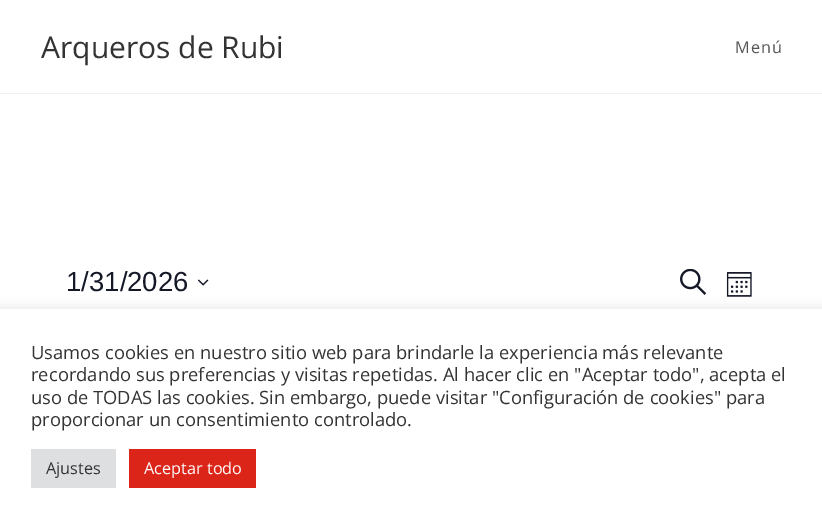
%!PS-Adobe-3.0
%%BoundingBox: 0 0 822 525
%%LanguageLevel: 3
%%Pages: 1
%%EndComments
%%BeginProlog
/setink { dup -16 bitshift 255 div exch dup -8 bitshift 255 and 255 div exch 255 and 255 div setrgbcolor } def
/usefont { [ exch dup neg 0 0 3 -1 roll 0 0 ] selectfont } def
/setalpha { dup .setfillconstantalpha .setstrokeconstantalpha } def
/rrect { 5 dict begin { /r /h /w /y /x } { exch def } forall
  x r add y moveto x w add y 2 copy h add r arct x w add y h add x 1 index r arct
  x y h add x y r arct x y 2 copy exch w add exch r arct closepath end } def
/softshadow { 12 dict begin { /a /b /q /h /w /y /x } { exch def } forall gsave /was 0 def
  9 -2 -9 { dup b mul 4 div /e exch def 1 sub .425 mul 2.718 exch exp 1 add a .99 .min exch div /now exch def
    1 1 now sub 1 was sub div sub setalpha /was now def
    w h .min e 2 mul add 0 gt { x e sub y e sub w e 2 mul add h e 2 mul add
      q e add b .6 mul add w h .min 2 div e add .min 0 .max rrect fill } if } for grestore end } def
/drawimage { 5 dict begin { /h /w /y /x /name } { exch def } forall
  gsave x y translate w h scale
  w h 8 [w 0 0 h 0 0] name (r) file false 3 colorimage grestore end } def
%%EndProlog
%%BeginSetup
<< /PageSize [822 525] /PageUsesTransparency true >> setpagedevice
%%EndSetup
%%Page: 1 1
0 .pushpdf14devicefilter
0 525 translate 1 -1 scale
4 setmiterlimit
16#FFFFFF setink
0 0 822 525 rectfill
16#F1F1F1 setink
0 93 822 1 rectfill
/OpenSans-Regular 30 usefont
16#333333 setink
41 58 moveto (Arqueros de Rubi) show
/OpenSans-Regular 16.25 usefont
16#555555 setink
735 53 moveto 1 0 (Menú) ashow
/LiberationSans-Regular 27.5 usefont
16#141827 setink
66 291 moveto (1/31/2026) show
(img1.raw) 198 279 11 7 drawimage
(img2.raw) 680 269 26 26 drawimage
(img3.raw) 726 272 26 25 drawimage
16#ACABAB setink
0 308 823 216 0 6 0.3 softshadow
16#FFFFFF setink
0 309 822 216 rectfill
/OpenSans-Regular 18.35 usefont
16#333333 setink
[
    [(Usamos cookies en nuestro sitio web para brindarle la experiencia más relevante) 31 359]
    [(recordando sus preferencias y visitas repetidas. Al hacer clic en "Aceptar todo", acepta el) 31 381]
    [(uso de TODAS las cookies. Sin embargo, puede visitar "Configuración de cookies" para) 31 404]
    [(proporcionar un consentimiento controlado.) 31 426]
] { aload pop moveto show } forall
16#DEDFE0 setink
31 449 85 39 rectfill
/OpenSans-Regular 16.25 usefont
16#333333 setink
46 474 moveto (Ajustes) show
16#DA2518 setink
129 449 127 39 rectfill
16#FFFFFF setink
144 474 moveto (Aceptar todo) show
.poppdf14devicefilter showpage
%%EOF
